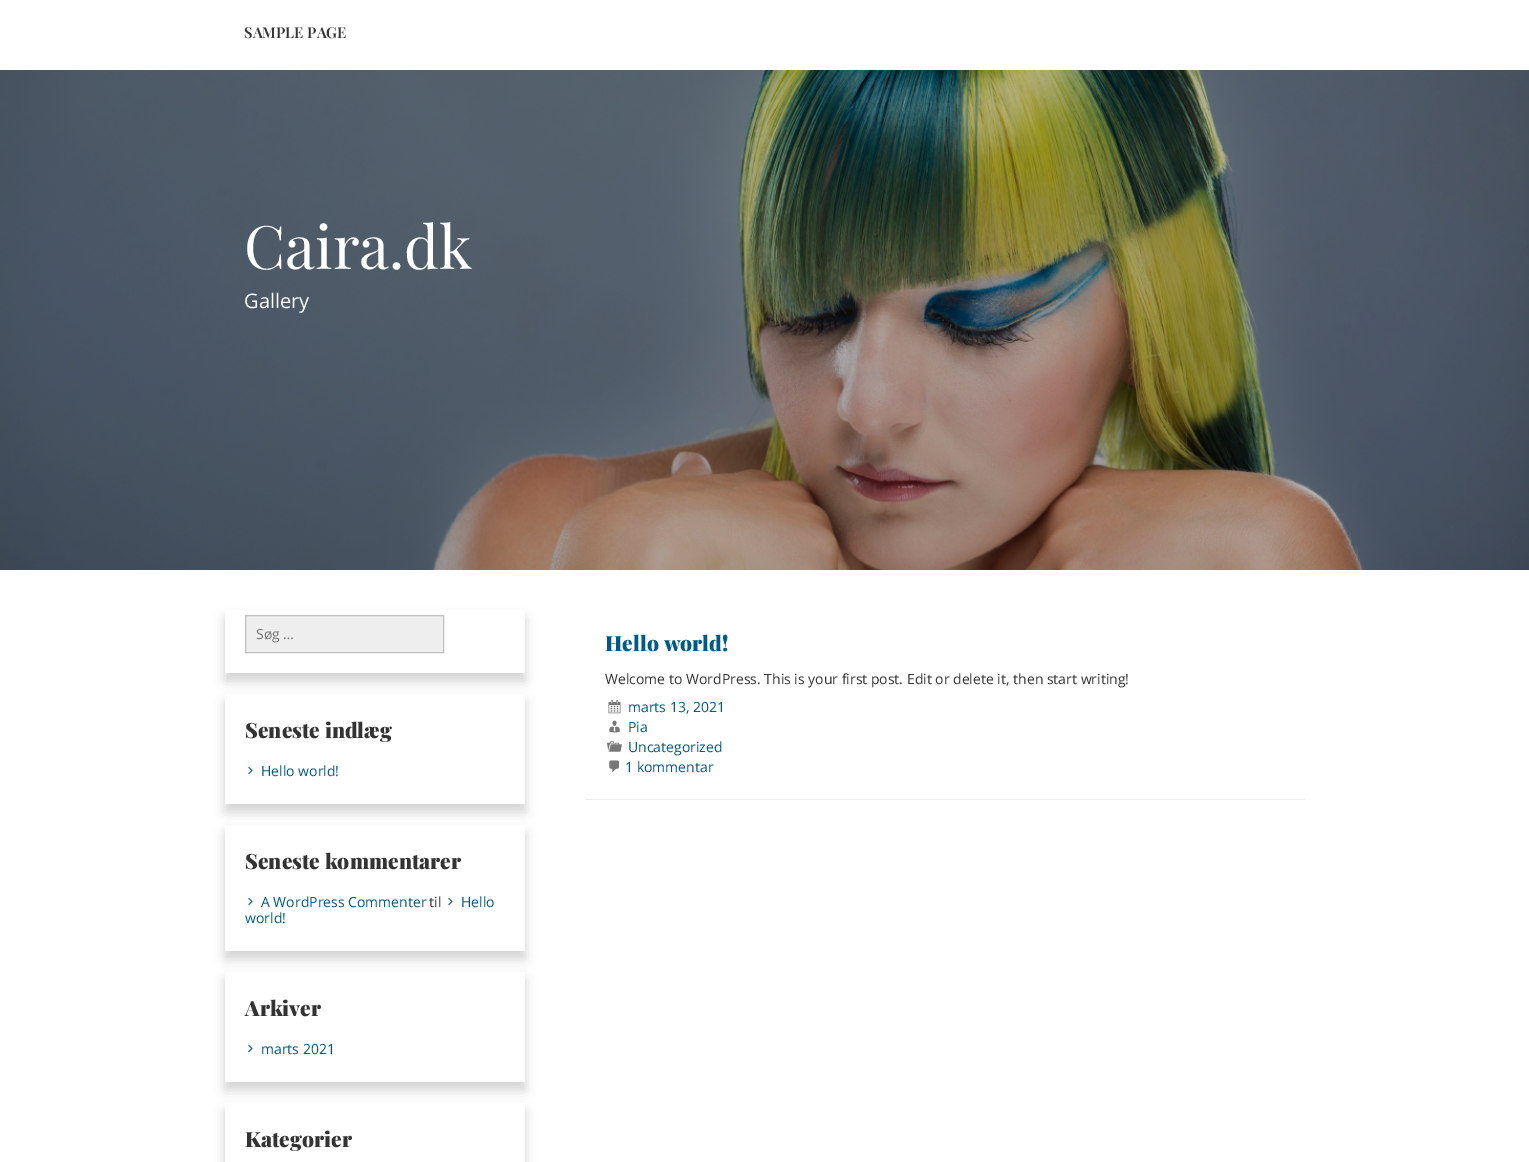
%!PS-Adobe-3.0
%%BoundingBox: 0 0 1529 1162
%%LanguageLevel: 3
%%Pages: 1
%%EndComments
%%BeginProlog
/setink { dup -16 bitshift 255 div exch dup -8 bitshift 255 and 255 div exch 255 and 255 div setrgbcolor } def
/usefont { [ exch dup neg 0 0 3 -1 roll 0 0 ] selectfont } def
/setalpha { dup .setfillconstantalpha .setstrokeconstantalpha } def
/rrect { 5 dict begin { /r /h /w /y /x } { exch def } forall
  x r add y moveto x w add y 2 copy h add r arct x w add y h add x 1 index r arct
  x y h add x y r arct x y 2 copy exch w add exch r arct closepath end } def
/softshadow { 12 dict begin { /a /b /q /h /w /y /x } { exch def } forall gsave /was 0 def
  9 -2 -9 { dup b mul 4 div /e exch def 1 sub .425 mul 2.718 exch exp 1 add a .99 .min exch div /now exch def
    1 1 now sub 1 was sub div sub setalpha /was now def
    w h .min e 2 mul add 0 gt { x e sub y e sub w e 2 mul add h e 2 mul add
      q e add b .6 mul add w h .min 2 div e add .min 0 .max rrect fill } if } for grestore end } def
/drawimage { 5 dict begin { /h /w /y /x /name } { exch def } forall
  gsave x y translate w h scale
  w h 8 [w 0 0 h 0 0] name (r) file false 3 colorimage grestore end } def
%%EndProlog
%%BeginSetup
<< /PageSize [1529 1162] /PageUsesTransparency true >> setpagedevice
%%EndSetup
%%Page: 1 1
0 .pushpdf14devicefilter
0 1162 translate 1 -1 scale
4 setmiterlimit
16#FFFFFF setink
0 0 1529 1162 rectfill
/PlayfairDisplay-SemiBold 15 usefont
16#333333 setink
244 38 moveto (SAMPLE PAGE) show
(img1.raw) 0 70 1529 500 drawimage
/PlayfairDisplay-Regular 60 usefont
16#FFFFFF setink
244 269 moveto (Caira.dk) show
/OpenSans-Regular 20 usefont
244 308 moveto (Gallery) show
gsave
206 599 moveto 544 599 lineto 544 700 lineto 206 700 lineto closepath 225 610 moveto 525 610 lineto 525 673 lineto 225 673 lineto closepath eoclip newpath
16#000000 setink
225 618 300 63 0 6 0.18 softshadow
grestore
16#EEEEEE setink
245.5 615.5 moveto 443.5 615.5 lineto 443.5 652.5 lineto 245.5 652.5 lineto closepath gsave fill grestore
16#C0C0C0 setink
stroke
/OpenSans-Regular 14 usefont
16#757575 setink
256 639 moveto (Søg …) show
gsave
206 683 moveto 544 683 lineto 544 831 lineto 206 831 lineto closepath 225 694 moveto 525 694 lineto 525 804 lineto 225 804 lineto closepath eoclip newpath
16#000000 setink
225 702 300 110 0 6 0.18 softshadow
grestore
/PlayfairDisplay-Black 21 usefont
16#333333 setink
245 738 moveto (Seneste indlæg) show
(img2.raw) 248 766 5 9 drawimage
/OpenSans-Regular 14 usefont
16#005A87 setink
261 776 moveto (Hello world!) show
gsave
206 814 moveto 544 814 lineto 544 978 lineto 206 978 lineto closepath 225 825 moveto 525 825 lineto 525 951 lineto 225 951 lineto closepath eoclip newpath
16#000000 setink
225 833 300 126 0 6 0.18 softshadow
grestore
/PlayfairDisplay-Black 21 usefont
16#333333 setink
245 869 moveto (Seneste kommentarer) show
(img2.raw) 448 897 5 9 drawimage
/OpenSans-Regular 14 usefont
16#005A87 setink
461 907 moveto (Hello) show
245 923 moveto (world!) show
(img2.raw) 248 897 5 9 drawimage
261 907 moveto (A WordPress Commenter) show
16#333333 setink
429 907 moveto (til) show
gsave
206 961 moveto 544 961 lineto 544 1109 lineto 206 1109 lineto closepath 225 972 moveto 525 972 lineto 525 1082 lineto 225 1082 lineto closepath eoclip newpath
16#000000 setink
225 980 300 110 0 6 0.18 softshadow
grestore
/PlayfairDisplay-Black 21 usefont
245 1016 moveto (Arkiver) show
(img2.raw) 248 1044 5 9 drawimage
/OpenSans-Regular 14 usefont
16#005A87 setink
261 1054 moveto (marts 2021) show
gsave
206 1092 moveto 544 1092 lineto 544 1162 lineto 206 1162 lineto closepath 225 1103 moveto 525 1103 lineto 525 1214 lineto 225 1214 lineto closepath eoclip newpath
16#000000 setink
225 1111 300 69 0 6 0.18 softshadow
grestore
/PlayfairDisplay-Black 21 usefont
16#333333 setink
245 1147 moveto (Kategorier) show
16#EEEEEE setink
585 799 720 1 rectfill
16#005A87 setink
605 651 moveto (Hello world!) show
/OpenSans-Regular 14 usefont
16#333333 setink
605 684 moveto (Welcome to WordPress. This is your first post. Edit or delete it, then start writing!) show
(img3.raw) 608 700 13 14 drawimage
16#005A87 setink
628 712 moveto (marts 13, 2021) show
(img4.raw) 609 720 11 13 drawimage
628 732 moveto (Pia) show
(img5.raw) 607 741 15 11 drawimage
628 752 moveto (Uncategorized) show
(img6.raw) 609 760 10 13 drawimage
625 772 moveto (1 kommentar) show
.poppdf14devicefilter showpage
%%EOF
